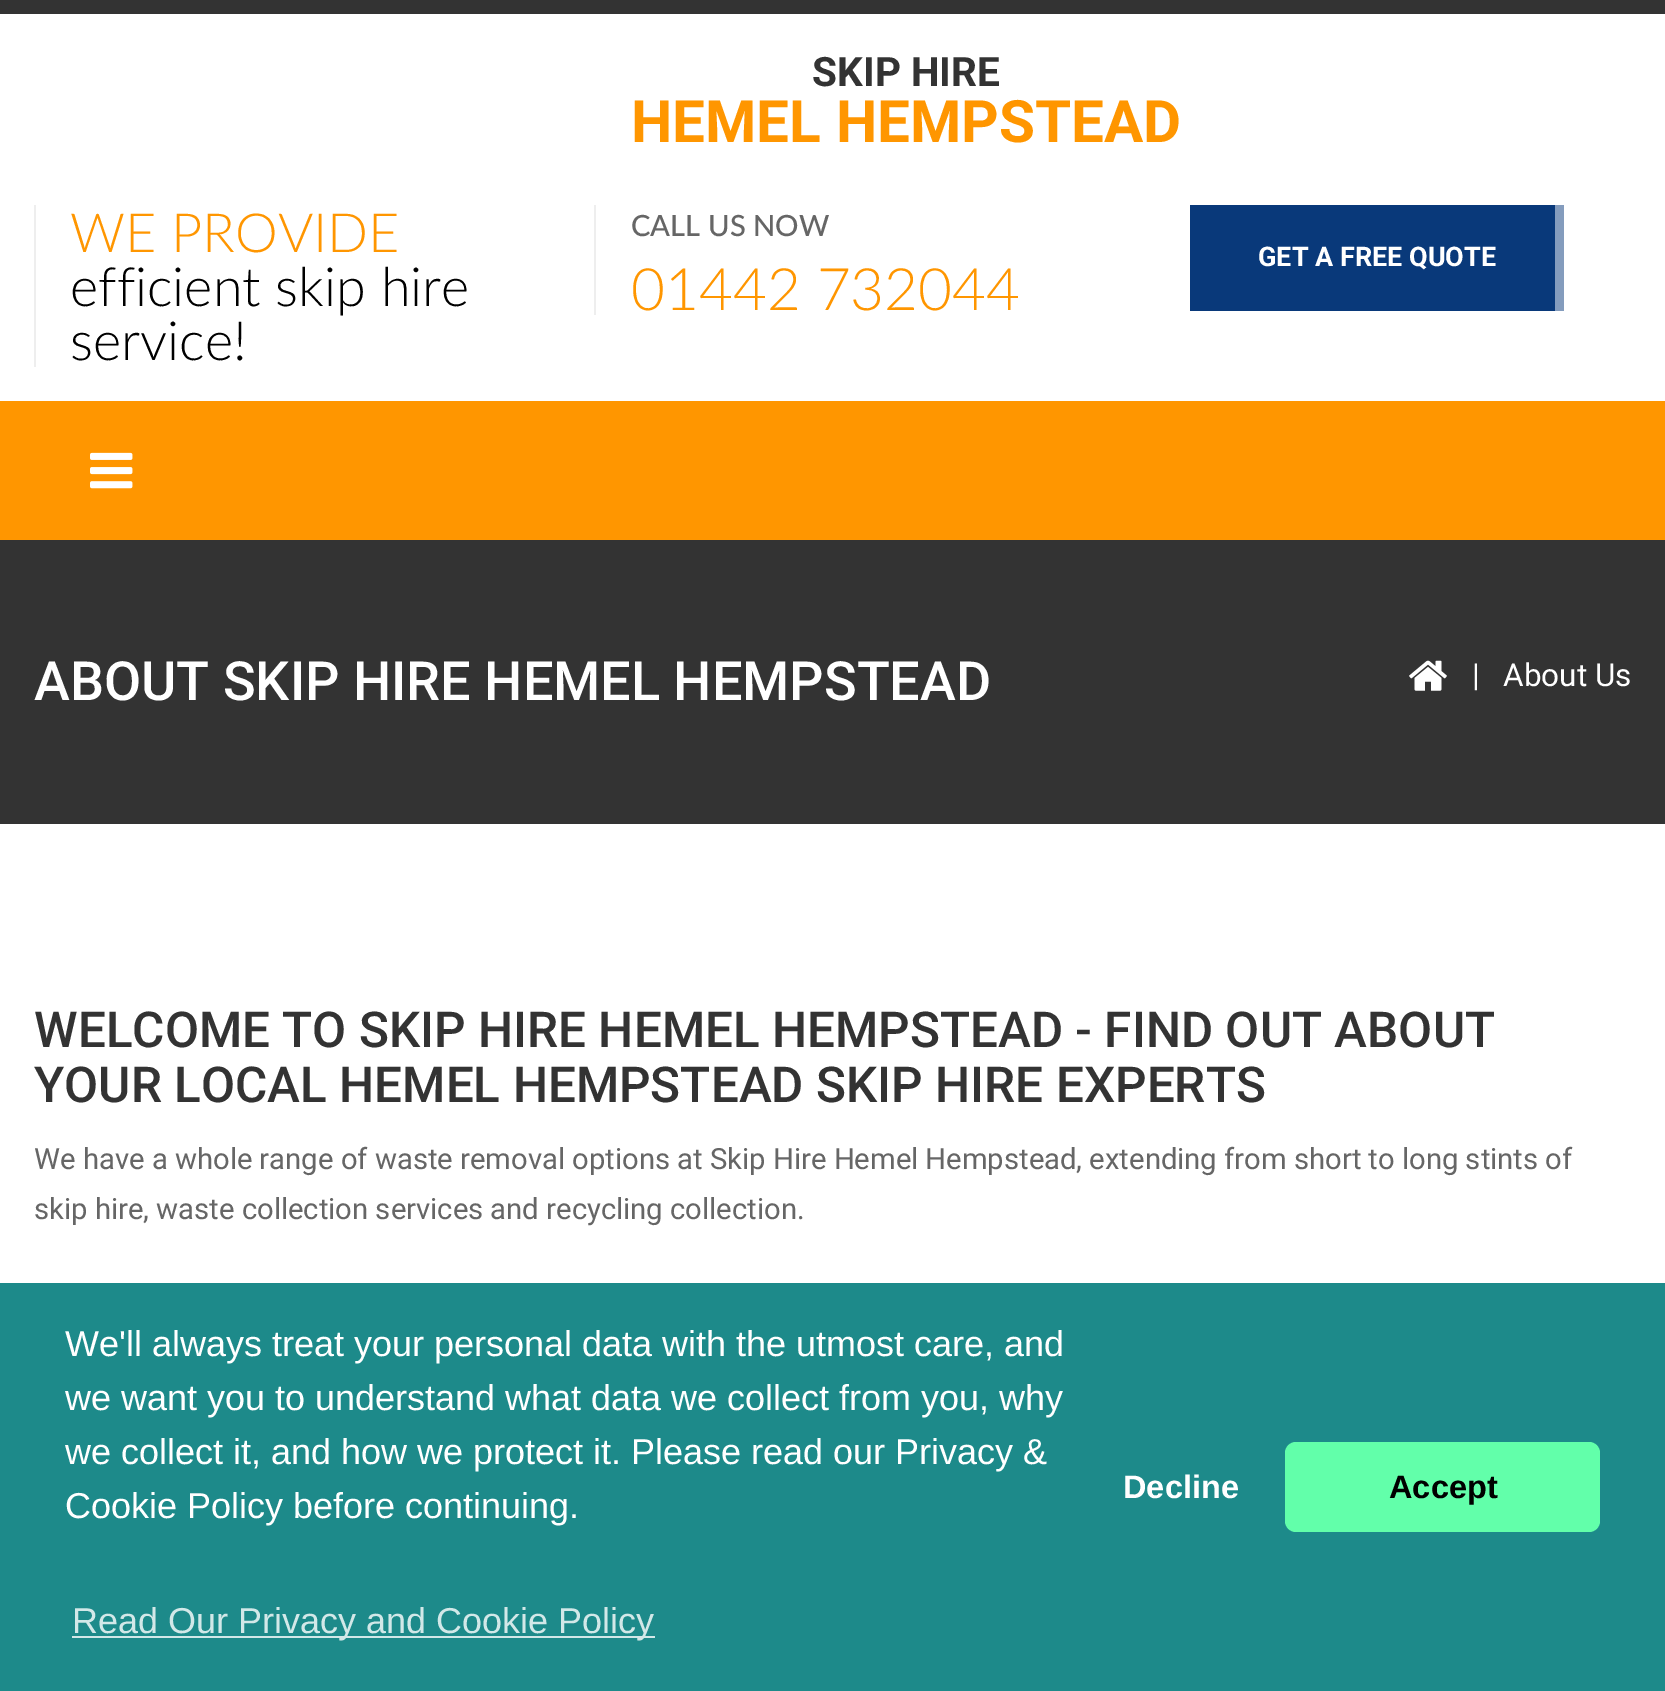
%!PS-Adobe-3.0
%%BoundingBox: 0 0 1665 1691
%%LanguageLevel: 3
%%Pages: 1
%%EndComments
%%BeginProlog
/setink { dup -16 bitshift 255 div exch dup -8 bitshift 255 and 255 div exch 255 and 255 div setrgbcolor } def
/usefont { [ exch dup neg 0 0 3 -1 roll 0 0 ] selectfont } def
/rrect { 5 dict begin { /r /h /w /y /x } { exch def } forall
  x r add y moveto x w add y 2 copy h add r arct x w add y h add x 1 index r arct
  x y h add x y r arct x y 2 copy exch w add exch r arct closepath end } def
/drawimage { 5 dict begin { /h /w /y /x /name } { exch def } forall
  gsave x y translate w h scale
  w h 8 [w 0 0 h 0 0] name (r) file false 3 colorimage grestore end } def
%%EndProlog
%%BeginSetup
<< /PageSize [1665 1691] >> setpagedevice
%%EndSetup
%%Page: 1 1
0 1691 translate 1 -1 scale
4 setmiterlimit
16#FFFFFF setink
0 0 1665 1691 rectfill
16#333333 setink
0 0 1665 14 rectfill
/Roboto-Bold 40.5 usefont
812 86 moveto (SKIP HIRE) show
/Roboto-Bold 58.5 usefont
16#FF9600 setink
631 142 moveto (HEMEL HEMPSTEAD) show
16#EEEEEE setink
34 205 2 162 rectfill
/Lato-Light 54 usefont
16#FF9600 setink
70 252 moveto (WE PROVIDE) show
16#000000 setink
70 306 moveto (efficient skip hire) show
70 360 moveto (service!) show
16#EEEEEE setink
594 205 2 110 rectfill
/Lato-Medium 29.25 usefont
16#666666 setink
631 236 moveto (CALL US NOW) show
/Lato-Light 58.5 usefont
16#FF9600 setink
631 310 moveto (01442 732044) show
16#09397A setink
1190 205 365 106 rectfill
/Roboto-Bold 27 usefont
16#FFFFFF setink
1258 266 moveto (GET A FREE QUOTE) show
16#849CBD setink
1555 205 9 106 rectfill
16#FF9600 setink
0 401 1665 139 rectfill
(img1.raw) 90 452 43 37 drawimage
16#333333 setink
0 540 1665 284 rectfill
/Roboto-Medium 54 usefont
16#FFFFFF setink
34 700 moveto (ABOUT SKIP HIRE HEMEL HEMPSTEAD) show
(img2.raw) 1409 660 38 31 drawimage
/Roboto-Regular 31.5 usefont
1472 686 moveto (|) show
1503 686 moveto (About Us) show
/Roboto-Medium 49.5 usefont
16#333333 setink
34 1047 moveto (WELCOME TO SKIP HIRE HEMEL HEMPSTEAD - FIND OUT ABOUT) show
34 1102 moveto (YOUR LOCAL HEMEL HEMPSTEAD SKIP HIRE EXPERTS) show
/Roboto-Regular 29.25 usefont
16#666666 setink
34 1169 moveto (We have a whole range of waste removal options at Skip Hire Hemel Hempstead, extending from short to long stints of) show
34 1219 moveto (skip hire, waste collection services and recycling collection.) show
16#1D8A8A setink
0 1283 1665 408 rectfill
/LiberationSans-Regular 36 usefont
16#FFFFFF setink
[
    [(We'll always treat your personal data with the utmost care, and) 65 1356]
    [(we want you to understand what data we collect from you, why) 65 1410]
    [(we collect it, and how we protect it. Please read our Privacy &) 65 1464]
    [(Cookie Policy before continuing.) 65 1518]
] { aload pop moveto show } forall
16#D2E8E8 setink
72 1636 583 2 rectfill
72 1633 moveto (Read Our Privacy and Cookie Policy) show
/LiberationSans-Bold 32.5 usefont
16#FFFFFF setink
1123 1498 moveto (Decline) show
16#62FFAA setink
1285 1442 315 90 11 rrect fill
16#000000 setink
1389 1498 moveto (Accept) show
showpage
%%EOF
